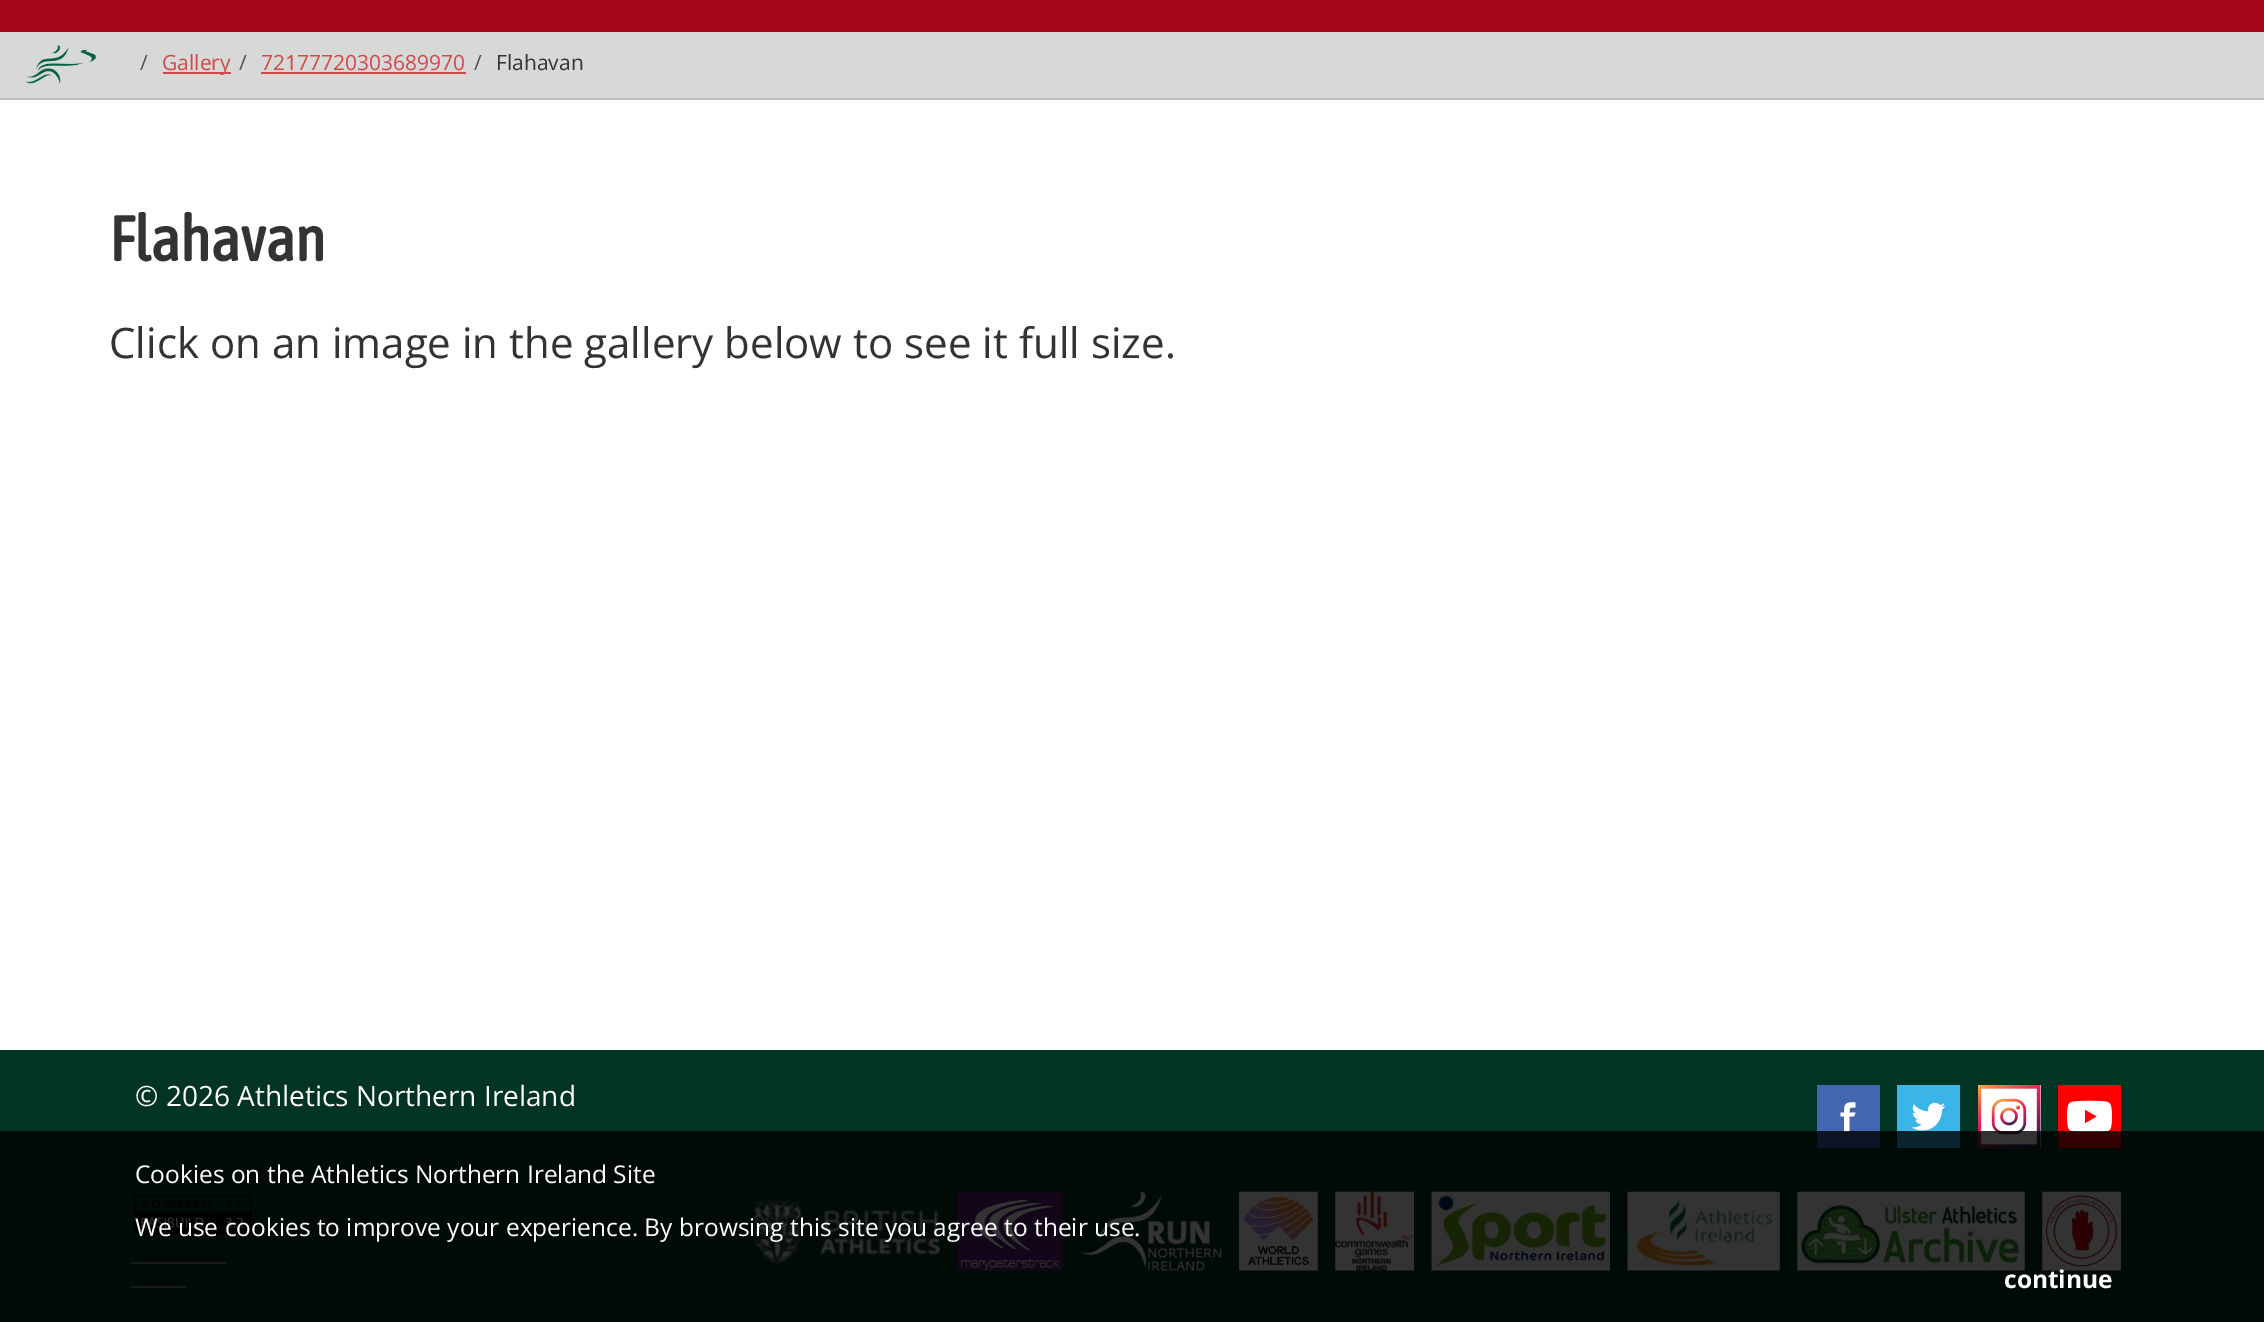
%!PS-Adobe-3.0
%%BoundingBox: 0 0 2264 1322
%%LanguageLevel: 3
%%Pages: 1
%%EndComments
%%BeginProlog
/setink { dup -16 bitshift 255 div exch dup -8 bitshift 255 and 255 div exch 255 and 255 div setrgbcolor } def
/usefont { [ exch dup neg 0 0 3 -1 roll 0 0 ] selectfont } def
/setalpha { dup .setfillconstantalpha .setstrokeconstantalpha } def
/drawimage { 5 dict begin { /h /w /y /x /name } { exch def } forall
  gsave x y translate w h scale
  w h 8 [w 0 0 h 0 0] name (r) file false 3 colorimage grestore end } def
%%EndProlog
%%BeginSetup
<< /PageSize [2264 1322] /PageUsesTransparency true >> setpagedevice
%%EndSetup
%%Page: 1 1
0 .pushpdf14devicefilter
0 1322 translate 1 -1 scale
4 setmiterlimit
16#FFFFFF setink
0 0 2264 1322 rectfill
[
    [0 0 2264 32 16#A50619]
    [0 32 2264 66 16#D8D8D8]
    [0 98 2264 2 16#BEBEBE]
] { aload pop setink rectfill } forall
(img1.raw) 26 45 71 39 drawimage
/OpenSans-Regular 21 usefont
16#505050 setink
140 70 moveto (/) show
16#CE4A46 setink
163 72 68 2 rectfill
162 70 moveto (Gallery) show
16#505050 setink
239 70 moveto (/) show
16#CE4A46 setink
261 70 moveto (72177720303689970) show
261 72 205 2 rectfill
16#505050 setink
474 70 moveto (/) show
16#333333 setink
496 70 moveto (Flahavan) show
/AsapCondensed-Bold 63 usefont
109 261 moveto (Flahavan) show
/OpenSans-Regular 42 usefont
109 358 moveto (Click on an image in the gallery below to see it full size.) show
16#013422 setink
0 1050 2264 272 rectfill
/OpenSans-Regular 28 usefont
16#FFFFFF setink
135 1106 moveto (© 2026 Athletics Northern Ireland) show
16#4466AF setink
1817 1085 63 63 rectfill
(img2.raw) 1897 1085 63 63 drawimage
16#FFFFFF setink
1981 1085 60 63 rectfill
(img3.raw) 1978 1085 63 63 drawimage
1855.5 1102.5 moveto 1851.5 1102.5 1846 1101.5 1844.5 1106.5 curveto 1844 1112.5 lineto 1840.5 1112.5 lineto 1840.5 1116.5 lineto 1844 1116.5 lineto 1844 1131.5 lineto 1849.5 1131.5 lineto 1849.5 1116.5 lineto 1854 1116.5 lineto 1855.5 1112.5 lineto 1849.5 1112.5 lineto 1849.5 1107 1849.5 1107.5 1855.5 1107.5 curveto closepath fill
(img4.raw) 2058 1085 63 63 drawimage
(img5.raw) 135 1195 117 39 drawimage
16#888888 setink
131 1262 95 2 rectfill
131 1286 55 2 rectfill
(img6.raw) 754 1200 186 64 drawimage
(img7.raw) 957 1191 106 80 drawimage
(img8.raw) 1079 1191 143 80 drawimage
(img9.raw) 1239 1191 79 80 drawimage
(img10.raw) 1335 1191 79 80 drawimage
(img11.raw) 1431 1191 179 80 drawimage
(img12.raw) 1627 1191 153 80 drawimage
(img13.raw) 1797 1191 228 80 drawimage
(img14.raw) 2042 1191 79 80 drawimage
0.8 setalpha
16#000000 setink
0 1131 2264 191 rectfill
/OpenSans-Regular 24.5 usefont
1 setalpha
16#FFFFFF setink
135 1183 moveto (Cookies on the Athletics Northern Ireland Site) show
135 1236 moveto (We use cookies to improve your experience. By browsing this site you agree to their use.) show
/OpenSans-Bold 24.5 usefont
2004 1288 moveto (continue) show
.poppdf14devicefilter showpage
%%EOF
